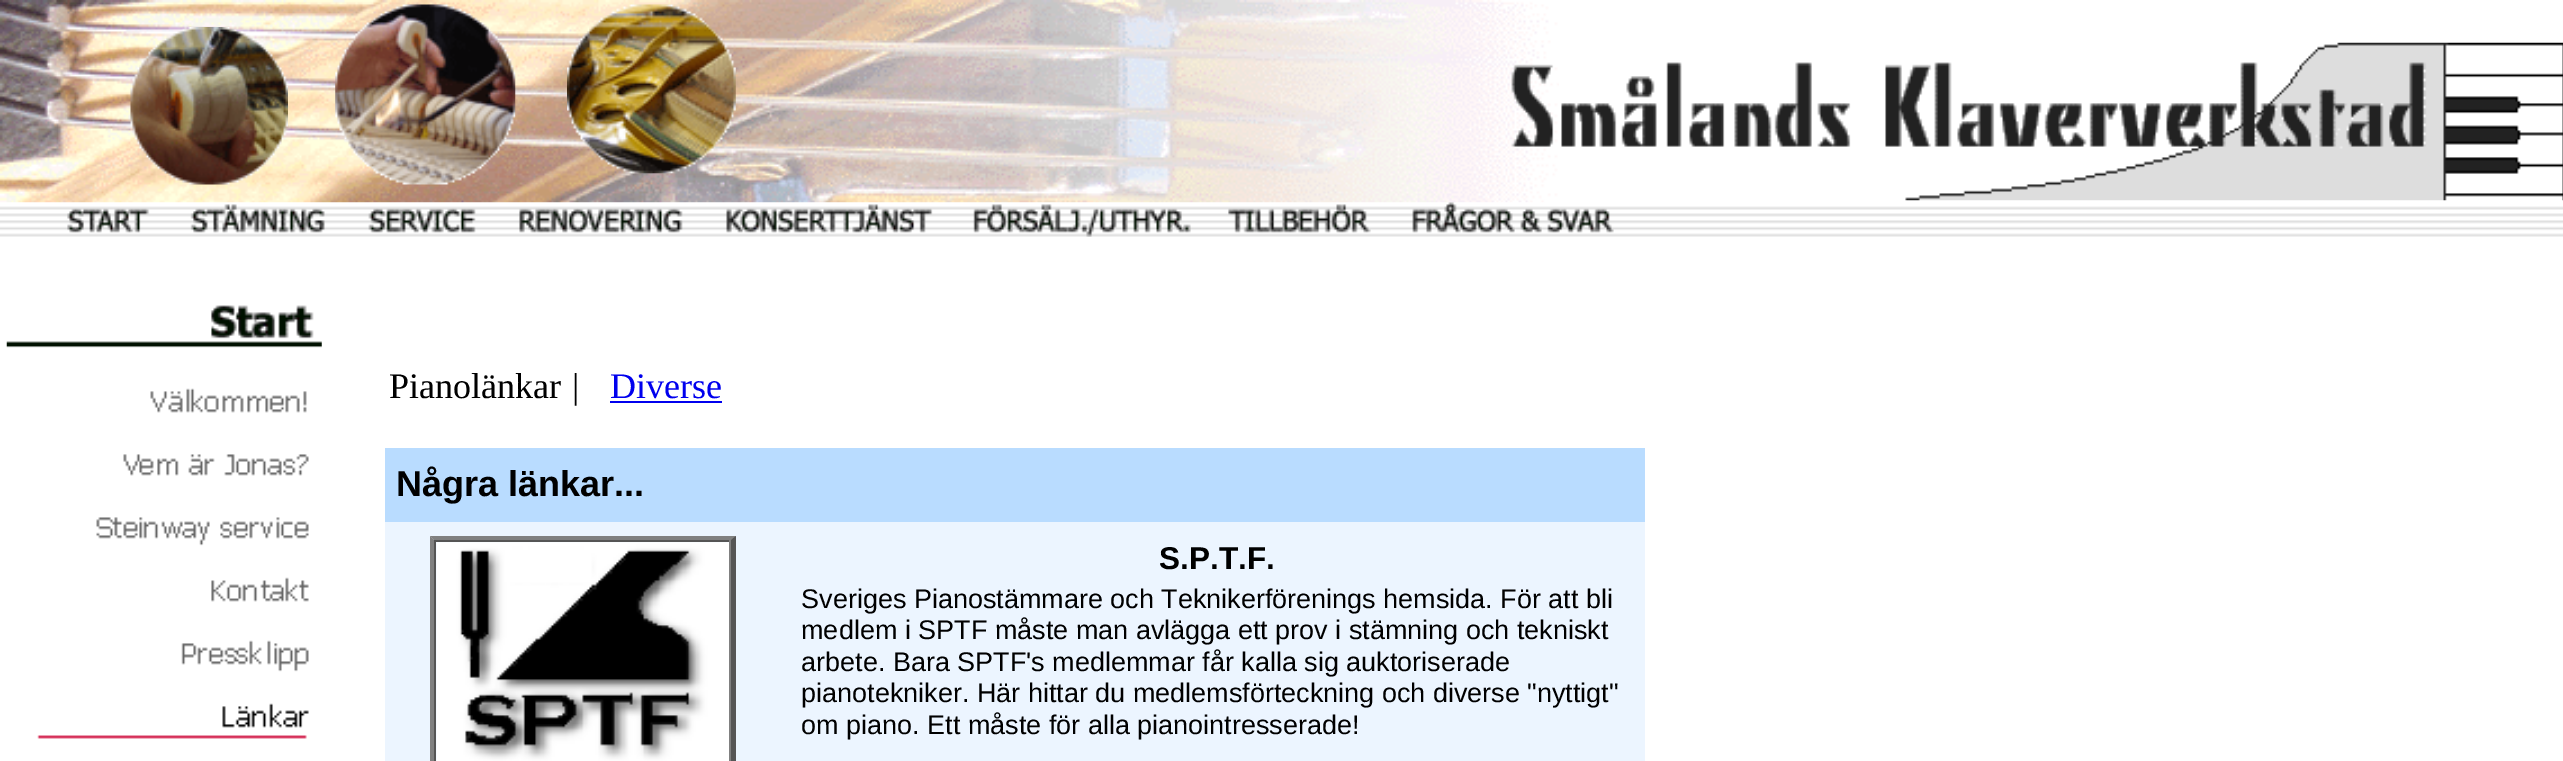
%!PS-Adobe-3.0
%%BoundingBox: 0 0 2563 761
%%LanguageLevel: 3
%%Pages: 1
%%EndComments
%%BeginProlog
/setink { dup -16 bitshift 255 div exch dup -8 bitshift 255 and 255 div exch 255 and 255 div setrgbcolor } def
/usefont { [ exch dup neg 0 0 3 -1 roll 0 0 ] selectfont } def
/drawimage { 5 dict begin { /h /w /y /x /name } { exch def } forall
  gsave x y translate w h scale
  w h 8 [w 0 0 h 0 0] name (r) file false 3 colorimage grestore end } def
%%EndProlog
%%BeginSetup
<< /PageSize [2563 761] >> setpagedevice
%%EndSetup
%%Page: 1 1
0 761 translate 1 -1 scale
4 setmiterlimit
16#FFFFFF setink
0 0 2563 761 rectfill
(img1.raw) 0 0 1559 203 drawimage
(img2.raw) 130 27 158 158 drawimage
(img3.raw) 335 4 181 181 drawimage
(img4.raw) 567 4 169 170 drawimage
(img5.raw) 1511 42 1052 159 drawimage
(img6.raw) 0 202 2563 35 drawimage
(img7.raw) 67 208 83 25 drawimage
(img8.raw) 190 204 135 29 drawimage
(img9.raw) 368 208 108 25 drawimage
(img10.raw) 519 208 164 25 drawimage
(img11.raw) 726 204 207 29 drawimage
(img12.raw) 973 204 218 33 drawimage
(img13.raw) 1228 204 143 29 drawimage
(img14.raw) 1412 202 202 31 drawimage
(img15.raw) 6 305 316 43 drawimage
(img16.raw) 150 388 157 25 drawimage
(img17.raw) 123 454 186 22 drawimage
(img18.raw) 96 517 213 29 drawimage
(img19.raw) 211 577 98 25 drawimage
(img20.raw) 181 640 128 32 drawimage
(img21.raw) 37 703 272 36 drawimage
/LiberationSerif-Regular 36 usefont
16#000000 setink
389 398 moveto (Pianolänkar) show
572 398 moveto (|) show
16#0000EE setink
610 398 moveto (Diverse) show
610 401 112 2 rectfill
16#B9DCFF setink
385 448 1260 74 rectfill
/LiberationSans-Bold 36 usefont
16#000000 setink
396 496 moveto (Några länkar...) show
16#ECF5FF setink
385 522 1260 239 rectfill
16#808080 setink
430 536 moveto 736 536 lineto 731 540 lineto 434 540 lineto closepath fill
16#555555 setink
736 536 moveto 736 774 lineto 731 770 lineto 731 540 lineto closepath fill
16#808080 setink
430 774 moveto 430 536 lineto 434 540 lineto 434 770 lineto closepath fill
[
    [434 540 297 2 16#555555]
    [729 540 2 221 16#808080]
    [434 540 2 221 16#555555]
] { aload pop setink rectfill } forall
(img22.raw) 436 542 293 219 drawimage
/LiberationSans-Bold 31.5 usefont
16#000000 setink
1159 569 moveto (S.P.T.F.) show
/LiberationSans-Regular 27 usefont
[
    [(Sveriges Pianostämmare och Teknikerförenings hemsida. För att bli) 801 608]
    [(medlem i SPTF måste man avlägga ett prov i stämning och tekniskt) 801 639]
    [(arbete. Bara SPTF's medlemmar får kalla sig auktoriserade) 801 671]
    [(pianotekniker. Här hittar du medlemsförteckning och diverse "nyttigt") 801 702]
    [(om piano. Ett måste för alla pianointresserade!) 801 734]
] { aload pop moveto show } forall
showpage
%%EOF
